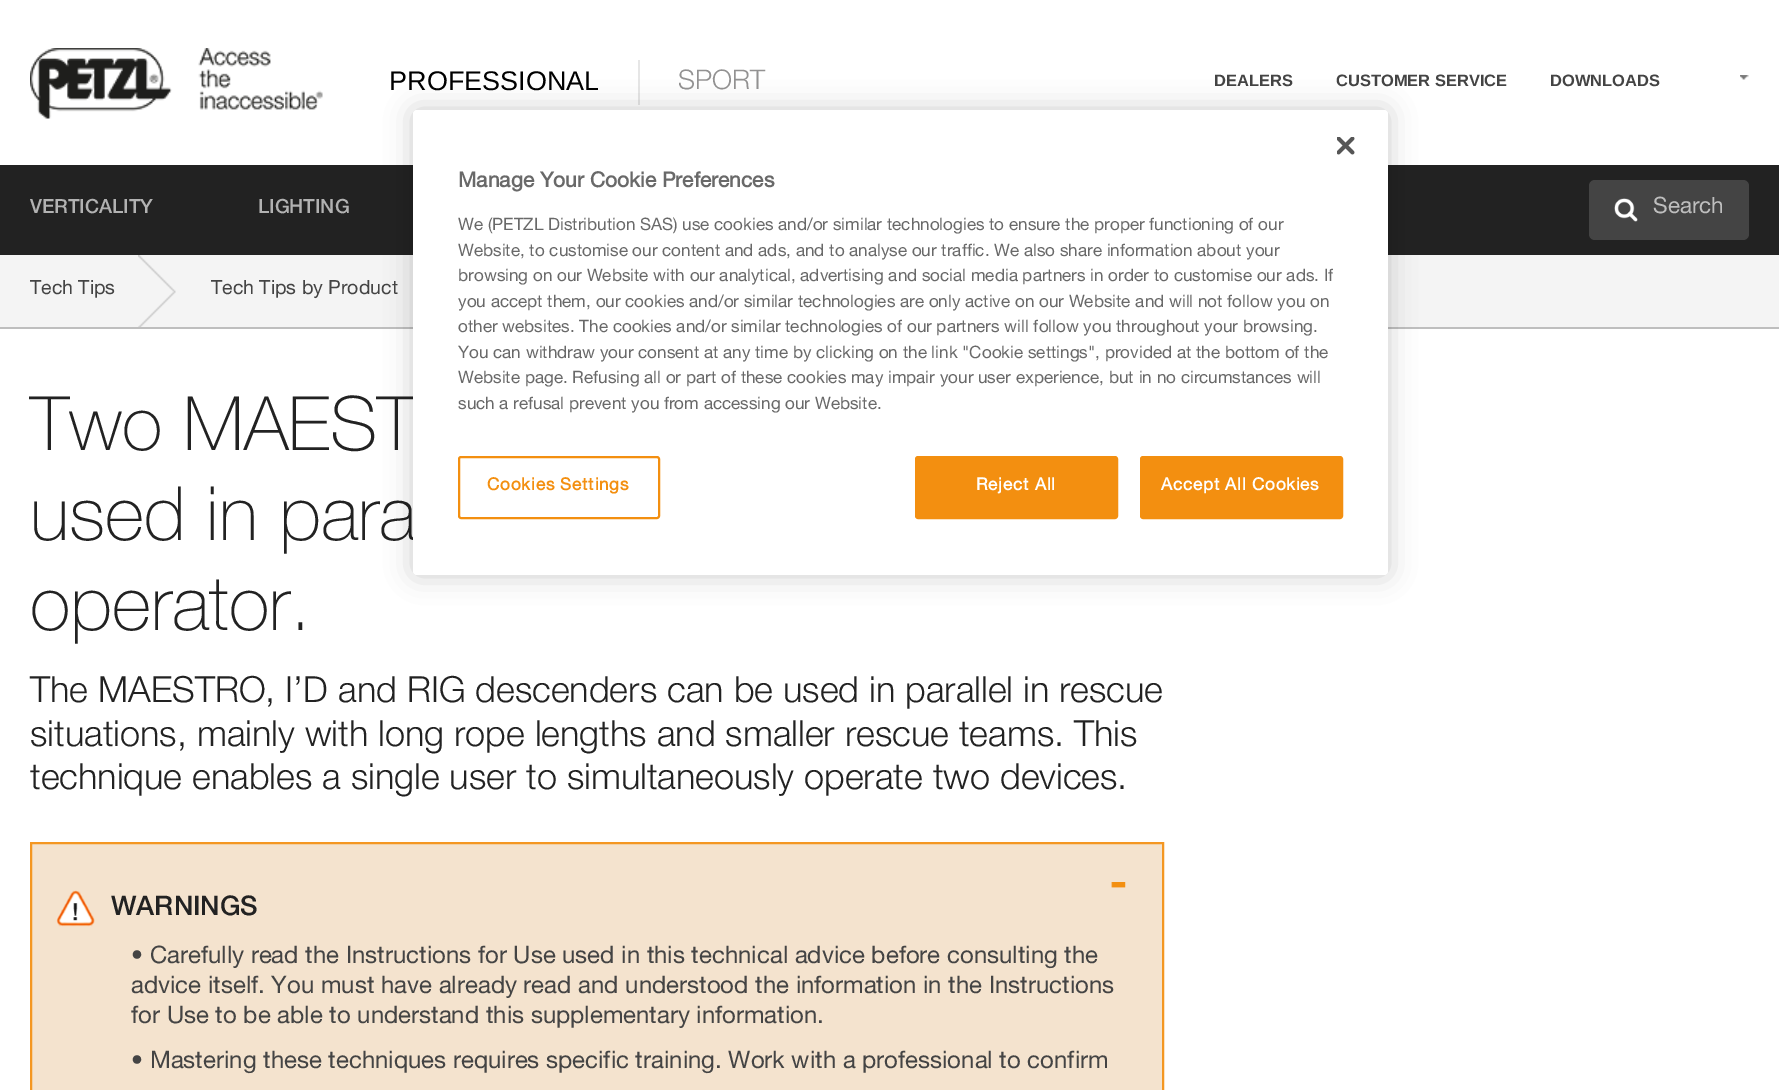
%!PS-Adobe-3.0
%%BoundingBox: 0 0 1779 1090
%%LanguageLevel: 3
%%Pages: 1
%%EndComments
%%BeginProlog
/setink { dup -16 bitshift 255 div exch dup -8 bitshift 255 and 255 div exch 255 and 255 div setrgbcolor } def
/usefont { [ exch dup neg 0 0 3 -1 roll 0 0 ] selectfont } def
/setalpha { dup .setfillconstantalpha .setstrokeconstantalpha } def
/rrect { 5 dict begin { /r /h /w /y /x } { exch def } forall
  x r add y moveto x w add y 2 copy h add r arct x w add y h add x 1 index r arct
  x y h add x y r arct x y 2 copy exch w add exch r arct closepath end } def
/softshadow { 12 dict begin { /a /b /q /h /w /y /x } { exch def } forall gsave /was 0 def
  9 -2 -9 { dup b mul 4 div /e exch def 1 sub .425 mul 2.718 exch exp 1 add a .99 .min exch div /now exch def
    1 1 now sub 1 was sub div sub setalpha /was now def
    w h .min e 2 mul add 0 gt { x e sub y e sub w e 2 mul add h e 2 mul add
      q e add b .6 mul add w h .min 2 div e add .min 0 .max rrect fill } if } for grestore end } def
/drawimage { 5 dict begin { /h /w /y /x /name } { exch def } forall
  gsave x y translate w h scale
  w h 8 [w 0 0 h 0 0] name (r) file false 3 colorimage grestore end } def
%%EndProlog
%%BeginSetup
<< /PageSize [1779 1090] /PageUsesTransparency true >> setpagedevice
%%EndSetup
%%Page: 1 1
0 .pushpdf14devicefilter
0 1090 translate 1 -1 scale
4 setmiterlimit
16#FFFFFF setink
0 0 1779 1090 rectfill
(img1.raw) 30 48 293 71 drawimage
/LiberationSans-Regular 27 usefont
16#000000 setink
389 90 moveto (PROFESSIONAL) show
16#E6E6E6 setink
638 60 2 45 rectfill
/HelveticaNeue-Light 27 usefont
16#939292 setink
678 89 moveto (SPORT) show
/LiberationSans-Bold 16.5 usefont
16#444444 setink
[
    [(DEALERS) 1214 86]
    [(CUSTOMER SERVICE) 1336 86]
    [(DOWNLOADS) 1550 86]
] { aload pop moveto show } forall
(img2.raw) 1740 75 9 5 drawimage
16#222222 setink
0 165 1779 90 rectfill
/HelveticaNeue-Medium 19.5 usefont
16#B2B2B2 setink
30 213 moveto (VERTICALITY) show
258 213 moveto (LIGHTING) show
16#444444 setink
1589 180 160 60 6 rrect fill
(img3.raw) 1614 198 24 24 drawimage
/HelveticaNeue-Regular 22.5 usefont
16#BEBEBE setink
1653 213 moveto (Search) show
16#F4F4F4 setink
0 255 1779 72 rectfill
16#BEBEBE setink
0 327 1779 2 rectfill
/HelveticaNeue-Regular 19.5 usefont
16#444444 setink
30 294 moveto (Tech Tips) show
(img4.raw) 138 255 38 72 drawimage
211 294 moveto (Tech Tips by Product) show
/HelveticaNeue-ExtraLight 75 usefont
16#222222 setink
[
    [(Two MAEST) 30 450]
    [(used in para) 30 540]
    [(operator.) 30 630]
] { aload pop moveto show } forall
/HelveticaNeue-Light 36 usefont
[
    [(The MAESTRO, I’D and RIG descenders can be used in parallel in rescue) 30 702]
    [(situations, mainly with long rope lengths and smaller rescue teams. This) 30 746]
    [(technique enables a single user to simultaneously operate two devices.) 30 789]
] { aload pop moveto show } forall
16#F4E3CE setink
31 843 moveto 1163 843 lineto 1163 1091 lineto 31 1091 lineto closepath gsave fill grestore
16#F49722 setink
2 setlinewidth
stroke
(img5.raw) 1111 882 15 6 drawimage
(img6.raw) 56 890 39 37 drawimage
/HelveticaNeue-Medium 27 usefont
16#222222 setink
111 915 moveto (WARNINGS) show
/HelveticaNeue-Regular 24 usefont
16#444444 setink
131 963 moveto (• Carefully read the Instructions for Use used in this technical advice before consulting the) show
131 993 moveto (advice itself. You must have already read and understood the information in the Instructions) show
gsave
131 929 1008 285 rectclip
131 1023 moveto (for Use to be able to understand this supplementary information.) show
grestore
131 1068 moveto (• Mastering these techniques requires specific training. Work with a professional to confirm) show
16#000000 setink
413 110 975 465 4 13.5 0.2 softshadow
16#FFFFFF setink
413 110 975 465 4 rrect fill
(img7.raw) 1337 137 18 18 drawimage
/HelveticaNeue-Bold 21 usefont
16#696969 setink
458 187 moveto (Manage Your Cookie Preferences) show
/HelveticaNeue-Regular 17.07 usefont
[
    [(We \(PETZL Distribution SAS\) use cookies and/or similar technologies to ensure the proper functioning of our) 458 230]
    [(Website, to customise our content and ads, and to analyse our traffic. We also share information about your) 458 256]
    [(browsing on our Website with our analytical, advertising and social media partners in order to customise our ads. If) 458 281]
    [(you accept them, our cookies and/or similar technologies are only active on our Website and will not follow you on) 458 307]
    [(other websites. The cookies and/or similar technologies of our partners will follow you throughout your browsing.) 458 332]
    [(You can withdraw your consent at any time by clicking on the link "Cookie settings", provided at the bottom of the) 458 358]
    [(Website page. Refusing all or part of these cookies may impair your user experience, but in no circumstances will) 458 383]
    [(such a refusal prevent you from accessing our Website.) 458 409]
] { aload pop moveto show } forall
16#F38F10 setink
459 457 200 61 2 rrect stroke
/HelveticaNeue-Bold 17.07 usefont
487 490 moveto 0.8 0 (Cookies Settings) ashow
916 457 201 61 2 rrect gsave fill grestore
stroke
16#FFFFFF setink
976 490 moveto 0.8 0 (Reject All) ashow
16#F38F10 setink
1141 457 201 61 2 rrect gsave fill grestore
stroke
16#FFFFFF setink
1161 490 moveto 0.8 0 (Accept All Cookies) ashow
.poppdf14devicefilter showpage
%%EOF
